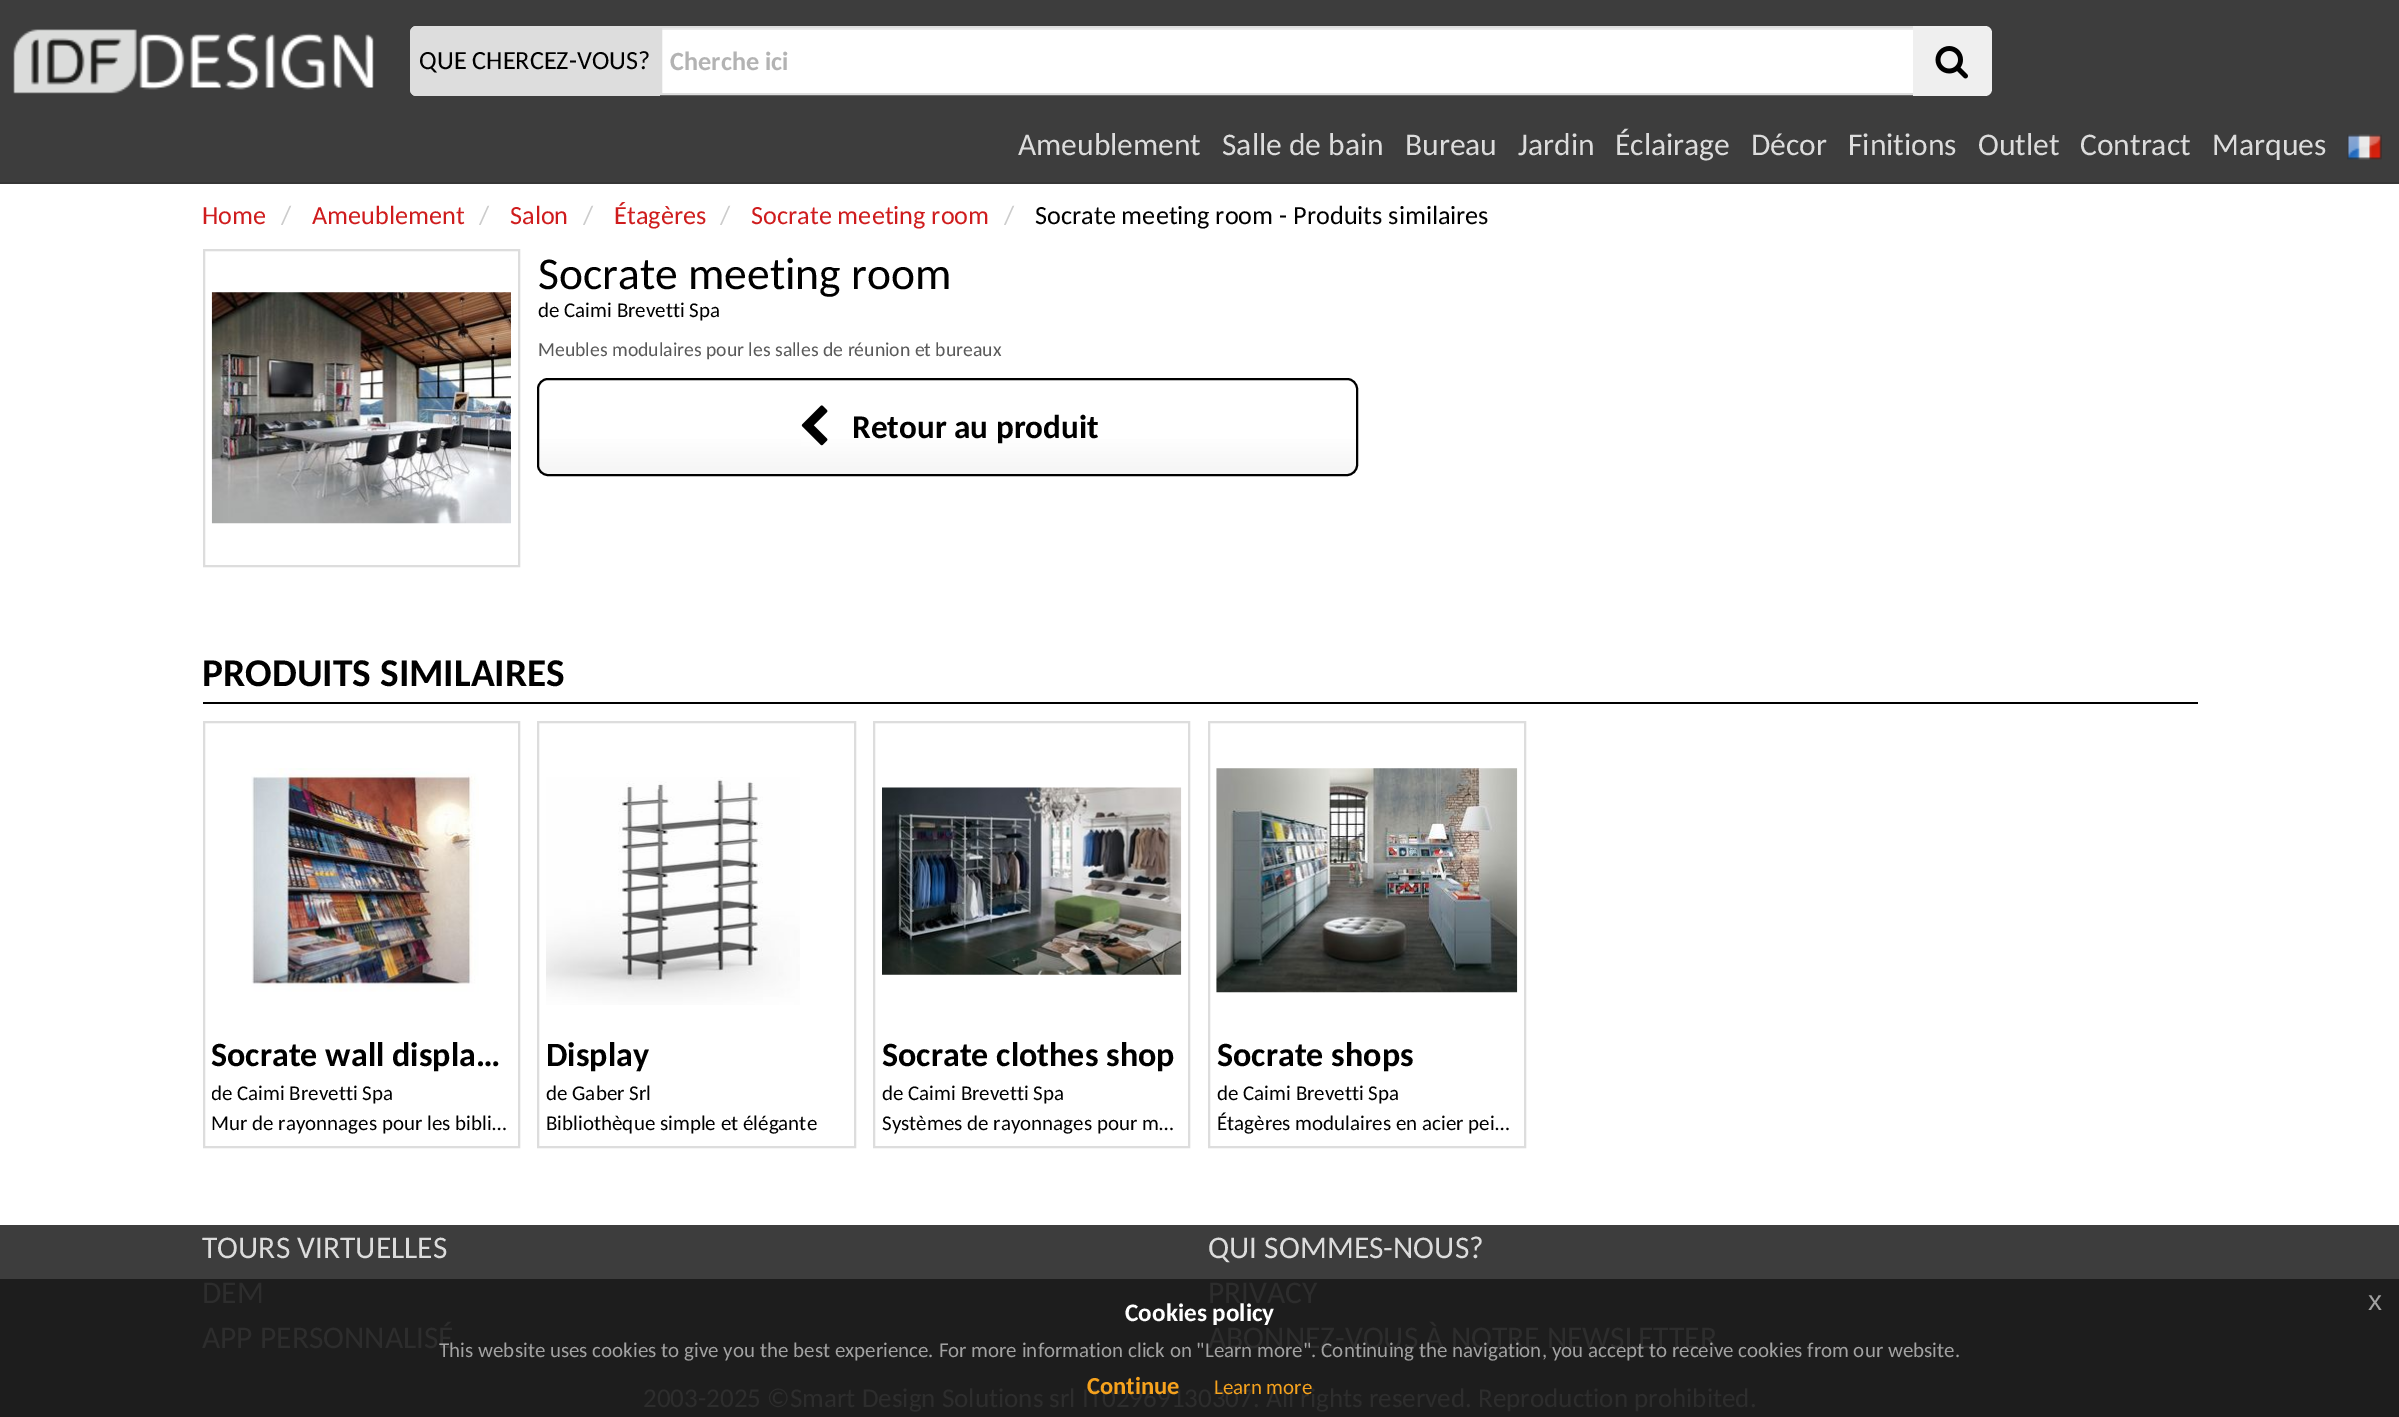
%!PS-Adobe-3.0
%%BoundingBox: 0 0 2399 1417
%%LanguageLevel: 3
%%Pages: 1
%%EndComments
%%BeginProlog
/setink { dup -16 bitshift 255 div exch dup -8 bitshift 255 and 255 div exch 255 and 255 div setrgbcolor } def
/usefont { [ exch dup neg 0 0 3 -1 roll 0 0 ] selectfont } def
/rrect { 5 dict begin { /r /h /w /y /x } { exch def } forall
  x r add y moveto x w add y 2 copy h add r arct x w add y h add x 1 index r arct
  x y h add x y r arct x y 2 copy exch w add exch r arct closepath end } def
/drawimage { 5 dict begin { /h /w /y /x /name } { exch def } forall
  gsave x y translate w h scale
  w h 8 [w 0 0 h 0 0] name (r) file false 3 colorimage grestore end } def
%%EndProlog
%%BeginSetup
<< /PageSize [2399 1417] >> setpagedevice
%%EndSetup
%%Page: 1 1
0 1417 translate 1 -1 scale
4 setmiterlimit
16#FFFFFF setink
0 0 2399 1417 rectfill
16#3D3D3D setink
0 0 2399 182 rectfill
16#363636 setink
0 182 2399 2 rectfill
(img1.raw) 13 29 361 65 drawimage
16#DDDDDD setink
417 26 moveto 660 26 lineto 660 96 lineto 417 96 lineto 413 96 410 93 410 89 curveto 410 33 lineto 410 29 413 26 417 26 curveto closepath fill
416 26 moveto 660 26 lineto 660 96 lineto 416 96 lineto 413 96 410 93 410 89 curveto 410 33 lineto 410 29 413 26 416 26 curveto closepath 416 28 moveto 660 28 lineto 660 94 lineto 416 94 lineto 414 94 411 92 411 89 curveto 411 33 lineto 411 30 414 28 416 28 curveto closepath eofill
/Carlito-Regular 26.25 usefont
16#000000 setink
419 69 moveto (QUE CHERCEZ-VOUS?) show
16#FFFFFF setink
662 30 1251 63 rectfill
16#ECECEC setink
662 28 1251 2 rectfill
16#DDDDDD setink
2 setlinewidth
661 27 1253 67 rectstroke
/Carlito-Bold 26.25 usefont
16#B3B3B3 setink
670 70 moveto (Cherche ici) show
16#EFEFEF setink
1913 26 moveto 1985 26 lineto 1989 26 1992 29 1992 33 curveto 1992 89 lineto 1992 93 1989 96 1985 96 curveto 1913 96 lineto closepath fill
(img2.raw) 1935 46 33 33 drawimage
/Carlito-Regular 31.5 usefont
16#DCDCDC setink
[
    [(Ameublement) 1018 155]
    [(Salle de bain) 1222 155]
    [(Bureau) 1405 155]
    [(Jardin) 1518 155]
    [(Éclairage) 1615 155]
    [(Décor) 1751 155]
    [(Finitions) 1848 155]
    [(Outlet) 1978 155]
    [(Contract) 2080 155]
    [(Marques) 2212 155]
] { aload pop moveto show } forall
(img3.raw) 2347 134 35 26 drawimage
/Carlito-Regular 26.25 usefont
16#CF1C1D setink
202 224 moveto (Home) show
16#CCCCCC setink
281 224 moveto (/) show
16#CF1C1D setink
312 224 moveto (Ameublement) show
16#CCCCCC setink
479 224 moveto (/) show
16#CF1C1D setink
510 224 moveto (Salon) show
16#CCCCCC setink
583 224 moveto (/) show
16#CF1C1D setink
614 224 moveto (Étagères) show
16#CCCCCC setink
720 224 moveto (/) show
16#CF1C1D setink
751 224 moveto (Socrate meeting room) show
16#CCCCCC setink
1004 224 moveto (/) show
16#000000 setink
1035 224 moveto (Socrate meeting room - Produits similaires) show
16#DDDDDD setink
204 250 315 316 rectstroke
(img4.raw) 211 292 300 232 drawimage
/Carlito-Regular 45.5 usefont
16#000000 setink
538 289 moveto (Socrate meeting room) show
/Carlito-Regular 21 usefont
538 317 moveto (de Caimi Brevetti Spa) show
/Carlito-Regular 19.7 usefont
16#595959 setink
538 356 moveto (Meubles modulaires pour les salles de réunion et bureaux) show
gsave
537 378 821 98 11 rrect clip newpath
gsave 539 380 moveto 1356 380 lineto 1356 474 lineto 539 474 lineto closepath clip newpath
<< /ShadingType 2 /ColorSpace /DeviceRGB /Coords [948 380 948 474] /Extend [true true] /Function << /FunctionType 3 /Domain [0 1] /Functions [<< /FunctionType 2 /Domain [0 1] /C0 [1 1 1] /C1 [1 1 1] /N 1 >> << /FunctionType 2 /Domain [0 1] /C0 [1 1 1] /C1 [0.961 0.961 0.961] /N 1 >>] /Bounds [0.6] /Encode [0 1 0 1] >> >> shfill grestore
grestore
16#000000 setink
538 379 819 96 10 rrect stroke
(img5.raw) 801 405 27 41 drawimage
/Carlito-Bold 33.25 usefont
852 438 moveto (Retour au produit) show
/Carlito-Bold 39.4 usefont
202 686 moveto (PRODUITS SIMILAIRES) show
203 702 1995 2 rectfill
16#DDDDDD setink
204 722 315 425 rectstroke
(img6.raw) 251 768 228 224 drawimage
/Carlito-Bold 34.1 usefont
16#000000 setink
211 1066 moveto (Socrate wall displa…) show
gsave
212 1080 299 30 rectclip
/Carlito-Regular 21 usefont
211 1100 moveto (de) show
grestore
/Carlito-Regular 21 usefont
237 1100 moveto (Caimi Brevetti Spa) show
211 1130 moveto (Mur de rayonnages pour les bibli…) show
16#DDDDDD setink
538 722 317 425 rectstroke
(img7.raw) 546 777 254 228 drawimage
/Carlito-Bold 34.1 usefont
16#000000 setink
546 1066 moveto (Display) show
/Carlito-Regular 21 usefont
546 1100 moveto (de Gaber Srl) show
546 1130 moveto (Bibliothèque simple et élégante) show
16#DDDDDD setink
874 722 315 425 rectstroke
(img8.raw) 882 787 300 188 drawimage
/Carlito-Bold 34.1 usefont
16#000000 setink
882 1066 moveto (Socrate clothes shop) show
/Carlito-Regular 21 usefont
882 1100 moveto (de Caimi Brevetti Spa) show
882 1130 moveto (Systèmes de rayonnages pour m…) show
16#DDDDDD setink
1209 722 316 425 rectstroke
(img9.raw) 1216 768 302 225 drawimage
/Carlito-Bold 34.1 usefont
16#000000 setink
1217 1066 moveto (Socrate shops) show
/Carlito-Regular 21 usefont
1217 1100 moveto (de Caimi Brevetti Spa) show
1217 1130 moveto (Étagères modulaires en acier pei…) show
16#3D3D3D setink
0 1225 2399 54 rectfill
16#1D1D1D setink
0 1279 2399 138 rectfill
/Carlito-Regular 31.5 usefont
16#DCDCDC setink
202 1258 moveto (TOURS VIRTUELLES) show
16#2D2D2D setink
202 1303 moveto (DEM) show
202 1348 moveto (APP PERSONNALISÉ) show
16#DCDCDC setink
1208 1258 moveto (QUI SOMMES-NOUS?) show
16#2D2D2D setink
1208 1303 moveto (PRIVACY) show
1208 1348 moveto (ABONNEZ-VOUS À NOTRE NEWSLETTER) show
/Carlito-Regular 27.1 usefont
643 1407 moveto (2003-2025 ©Smart Design Solutions srl IT02969130307. All rights reserved. Reproduction prohibited.) show
/Carlito-Bold 25.25 usefont
16#FFFFFF setink
1125 1321 moveto (Cookies policy) show
/LiberationSans-Regular 28 usefont
16#A2A2A2 setink
2368 1310 moveto (x) show
/Carlito-Regular 21 usefont
439 1357 moveto (This website uses cookies to give you the best experience. For more information click on "Learn more". Continuing the navigation, you accept to receive cookies from our website.) show
/Carlito-Bold 24.5 usefont
16#F6A21D setink
1087 1394 moveto (Continue) show
/Carlito-Regular 21 usefont
1214 1394 moveto (Learn more) show
showpage
%%EOF
